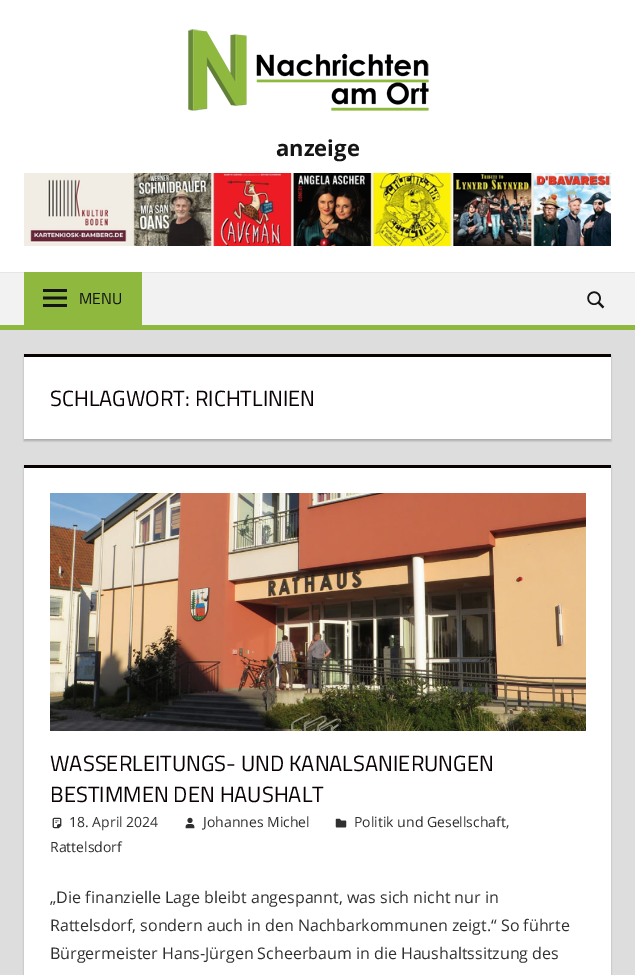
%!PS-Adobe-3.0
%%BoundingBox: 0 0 635 975
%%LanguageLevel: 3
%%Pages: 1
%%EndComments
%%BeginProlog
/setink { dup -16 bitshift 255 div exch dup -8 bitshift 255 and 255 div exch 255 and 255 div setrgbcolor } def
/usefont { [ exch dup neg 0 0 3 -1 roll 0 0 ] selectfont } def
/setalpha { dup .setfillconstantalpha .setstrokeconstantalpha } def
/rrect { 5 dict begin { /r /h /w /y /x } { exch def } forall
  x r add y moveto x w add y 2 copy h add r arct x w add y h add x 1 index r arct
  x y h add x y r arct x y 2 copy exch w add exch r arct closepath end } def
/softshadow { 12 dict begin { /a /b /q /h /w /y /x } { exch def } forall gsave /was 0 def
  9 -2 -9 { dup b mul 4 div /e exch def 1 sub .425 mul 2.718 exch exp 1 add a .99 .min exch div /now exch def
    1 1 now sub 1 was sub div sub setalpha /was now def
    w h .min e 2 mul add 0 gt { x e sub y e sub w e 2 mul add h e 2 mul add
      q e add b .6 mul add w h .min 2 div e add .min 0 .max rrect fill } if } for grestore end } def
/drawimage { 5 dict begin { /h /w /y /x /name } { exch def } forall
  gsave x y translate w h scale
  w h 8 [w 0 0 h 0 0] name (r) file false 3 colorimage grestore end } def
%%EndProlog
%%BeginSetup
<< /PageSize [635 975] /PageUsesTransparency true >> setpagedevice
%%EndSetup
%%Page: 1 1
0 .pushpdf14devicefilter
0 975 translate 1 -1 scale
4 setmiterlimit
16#DDDDDD setink
0 0 635 975 rectfill
16#FFFFFF setink
0 0 635 272 rectfill
(img1.raw) 188 29 241 82 drawimage
/OpenSans-Bold 22 usefont
16#151515 setink
276 156 moveto (anzeige) show
(img2.raw) 24 173 587 73 drawimage
[
    [0 273 635 52 16#F2F2F2]
    [0 272 635 1 16#E6E6E6]
    [0 325 635 5 16#8EB83E]
    [24 272 118 53 16#8EB83E]
] { aload pop setink rectfill } forall
(img3.raw) 43 289 24 18 drawimage
/TitilliumWeb-Regular 16 usefont
16#151515 setink
79 304 moveto (MENU) show
(img4.raw) 587 291 18 18 drawimage
16#AAAAAA setink
24 356 587 85 0 1 1 softshadow
16#FFFFFF setink
24 357 587 82 rectfill
16#0A0103 setink
24 354 587 3 rectfill
/TitilliumWeb-Regular 22 usefont
50 406 moveto (SCHLAGWORT: RICHTLINIEN) show
16#AAAAAA setink
24 467 587 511 0 1 1 softshadow
16#FFFFFF setink
24 468 587 507 rectfill
16#0A0103 setink
24 465 587 3 rectfill
(img5.raw) 50 493 536 238 drawimage
50 771 moveto (WASSERLEITUNGS- UND KANALSANIERUNGEN) show
50 802 moveto (BESTIMMEN DEN HAUSHALT) show
(img6.raw) 52 817 10 12 drawimage
/OpenSans-Regular 14 usefont
16#303030 setink
69 827 moveto (18. April 2024) show
(img7.raw) 185 817 10 12 drawimage
203 827 moveto (Johannes Michel) show
(img8.raw) 335 818 12 10 drawimage
354 827 moveto (Politik und Gesellschaft,) show
50 852 moveto (Rattelsdorf) show
/OpenSans-Regular 16 usefont
[
    [(„Die finanzielle Lage bleibt angespannt, was sich nicht nur in) 50 903]
    [(Rattelsdorf, sondern auch in den Nachbarkommunen zeigt.“ So führte) 50 931]
    [(Bürgermeister Hans-Jürgen Scheerbaum in die Haushaltssitzung des) 50 959]
] { aload pop moveto show } forall
.poppdf14devicefilter showpage
%%EOF
